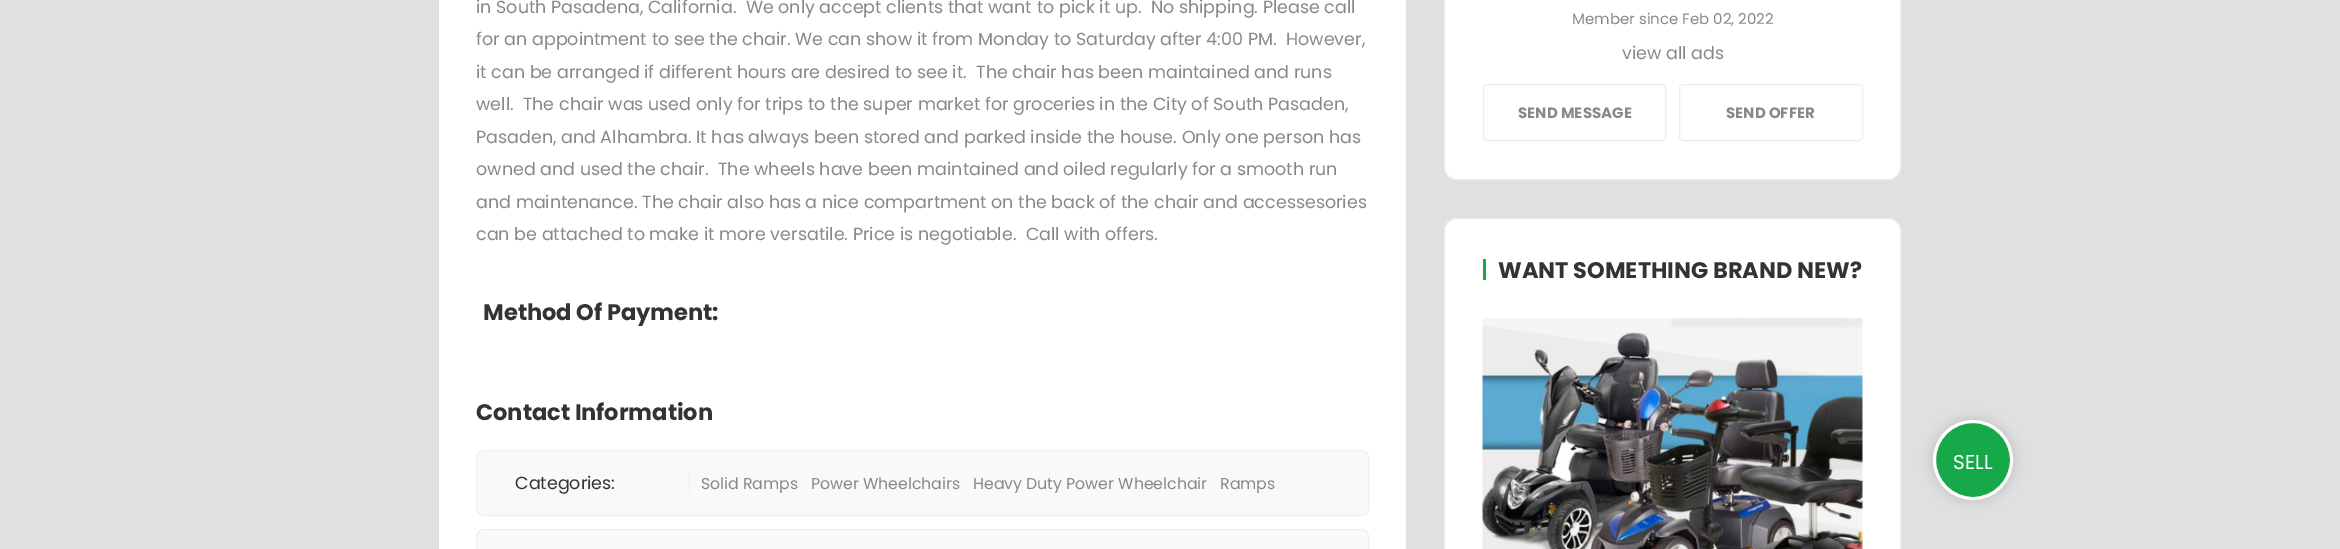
%!PS-Adobe-3.0
%%BoundingBox: 0 0 2340 549
%%LanguageLevel: 3
%%Pages: 1
%%EndComments
%%BeginProlog
/setink { dup -16 bitshift 255 div exch dup -8 bitshift 255 and 255 div exch 255 and 255 div setrgbcolor } def
/usefont { [ exch dup neg 0 0 3 -1 roll 0 0 ] selectfont } def
/setalpha { dup .setfillconstantalpha .setstrokeconstantalpha } def
/disc { newpath 0 360 arc closepath } def
/rrect { 5 dict begin { /r /h /w /y /x } { exch def } forall
  x r add y moveto x w add y 2 copy h add r arct x w add y h add x 1 index r arct
  x y h add x y r arct x y 2 copy exch w add exch r arct closepath end } def
/softshadow { 12 dict begin { /a /b /q /h /w /y /x } { exch def } forall gsave /was 0 def
  9 -2 -9 { dup b mul 4 div /e exch def 1 sub .425 mul 2.718 exch exp 1 add a .99 .min exch div /now exch def
    1 1 now sub 1 was sub div sub setalpha /was now def
    w h .min e 2 mul add 0 gt { x e sub y e sub w e 2 mul add h e 2 mul add
      q e add b .6 mul add w h .min 2 div e add .min 0 .max rrect fill } if } for grestore end } def
/drawimage { 5 dict begin { /h /w /y /x /name } { exch def } forall
  gsave x y translate w h scale
  w h 8 [w 0 0 h 0 0] name (r) file false 3 colorimage grestore end } def
%%EndProlog
%%BeginSetup
<< /PageSize [2340 549] /PageUsesTransparency true >> setpagedevice
%%EndSetup
%%Page: 1 1
0 .pushpdf14devicefilter
0 549 translate 1 -1 scale
4 setmiterlimit
16#DFE1E0 setink
0 0 2340 549 rectfill
16#FFFFFF setink
439 0 967 549 rectfill
/Poppins-Regular 17.5 usefont
16#888888 setink
[
    [(in South Pasadena, California.  We only accept clients that want to pick it up.  No shipping. Please call) 476 13]
    [(for an appointment to see the chair. We can show it from Monday to Saturday after 4:00 PM.  However,) 476 45]
    [(it can be arranged if different hours are desired to see it.  The chair has been maintained and runs) 476 78]
    [(well.  The chair was used only for trips to the super market for groceries in the City of South Pasaden,) 476 110]
    [(Pasaden, and Alhambra. It has always been stored and parked inside the house. Only one person has) 476 143]
    [(owned and used the chair.  The wheels have been maintained and oiled regularly for a smooth run) 476 175]
    [(and maintenance. The chair also has a nice compartment on the back of the chair and accessesories) 476 208]
    [(can be attached to make it more versatile. Price is negotiable.  Call with offers.) 476 240]
] { aload pop moveto show } forall
/Poppins-Bold 22.5 usefont
16#333333 setink
483 320 moveto (Method Of Payment:) show
476 420 moveto (Contact Information) show
16#F9F9F9 setink
476.5 450.5 892 65 7.5 rrect gsave fill grestore
16#EEEEEE setink
stroke
689 470 1 25 rectfill
/Poppins-Regular 17.5 usefont
16#333333 setink
515 489 moveto (Categories:) show
/Poppins-Regular 15.75 usefont
16#888888 setink
[
    [(Solid Ramps) 701 489]
    [(Power Wheelchairs) 811 489]
    [(Heavy Duty Power Wheelchair) 973 489]
    [(Ramps) 1220 489]
] { aload pop moveto show } forall
16#F9F9F9 setink
476.5 529.5 892 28 7.5 rrect gsave fill grestore
16#EEEEEE setink
stroke
16#FFFFFF setink
1444.5 -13.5 456 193 12.5 rrect gsave fill grestore
16#EEEEEE setink
stroke
/Poppins-Regular 15 usefont
16#888888 setink
1572 24 moveto (Member since Feb 02, 2022) show
/Poppins-Regular 17.5 usefont
1622 59 moveto (view all ads) show
16#EEEEEE setink
1483.5 84.5 182 56 3.5 rrect stroke
/Poppins-Bold 15 usefont
16#888888 setink
1518 118 moveto (SEND MESSAGE) show
16#EEEEEE setink
1679.5 84.5 183 56 3.5 rrect stroke
16#888888 setink
1726 118 moveto (SEND OFFER) show
16#FFFFFF setink
1444.5 218.5 456 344 12.5 rrect gsave fill grestore
16#EEEEEE setink
stroke
16#15A949 setink
1483 259 3 21 rectfill
/Poppins-Bold 22.5 usefont
16#333333 setink
1498 278 moveto (WANT SOMETHING BRAND NEW?) show
(img1.raw) 1482 318 381 231 drawimage
16#000000 setink
1933 420 80 80 40 6 0.15 softshadow
16#15A949 setink
1973 460 38.5 disc gsave fill grestore
16#FFFFFF setink
3 setlinewidth
stroke
/Poppins-Regular 20 usefont
1953 469 moveto (SELL) show
.poppdf14devicefilter showpage
%%EOF
